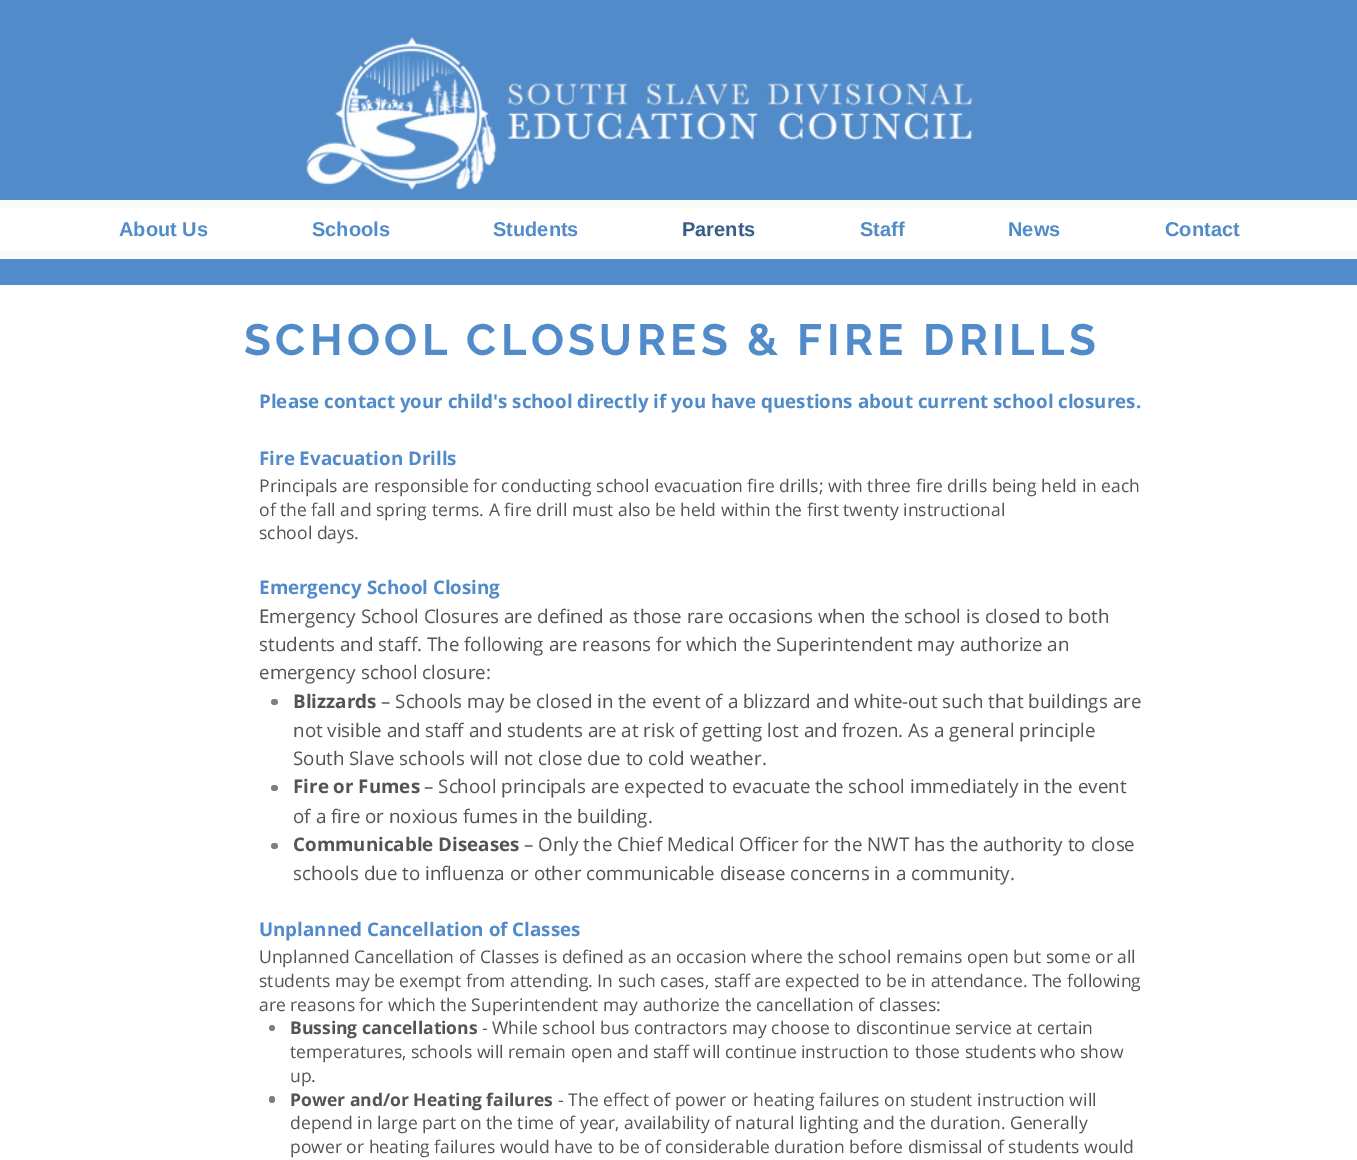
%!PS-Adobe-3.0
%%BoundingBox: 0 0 1357 1160
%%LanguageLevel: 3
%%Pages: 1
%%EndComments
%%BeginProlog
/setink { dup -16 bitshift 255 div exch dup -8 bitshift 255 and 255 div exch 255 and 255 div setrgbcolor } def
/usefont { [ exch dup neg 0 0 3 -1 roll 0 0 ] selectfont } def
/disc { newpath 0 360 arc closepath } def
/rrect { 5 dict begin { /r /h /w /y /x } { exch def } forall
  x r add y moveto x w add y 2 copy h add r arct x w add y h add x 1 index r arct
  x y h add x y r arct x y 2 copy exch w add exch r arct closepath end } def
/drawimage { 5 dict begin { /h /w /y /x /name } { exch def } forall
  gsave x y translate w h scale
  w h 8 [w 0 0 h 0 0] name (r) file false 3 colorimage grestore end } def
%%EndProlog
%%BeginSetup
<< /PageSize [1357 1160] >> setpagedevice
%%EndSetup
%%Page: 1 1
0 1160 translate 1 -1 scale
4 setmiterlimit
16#FFFFFF setink
0 0 1357 1160 rectfill
16#518BC9 setink
0 0 1357 285 rectfill
(img1.raw) 306 37 667 154 drawimage
16#FAFAFA setink
0 200 1357 8 rectfill
16#FFFFFF setink
0 208 1357 43 rectfill
/LiberationSans-Bold 20 usefont
16#518BC9 setink
[
    [(About Us) 119 236]
    [(Schools) 312 236]
    [(Students) 493 236]
] { aload pop moveto show } forall
16#365D86 setink
682 236 moveto (Parents) show
16#518BC9 setink
[
    [(Staff) 860 236]
    [(News) 1008 236]
    [(Contact) 1165 236]
] { aload pop moveto show } forall
16#FAFAFA setink
0 251 1357 8 rectfill
/Raleway-Bold 43.75 usefont
16#518BC9 setink
244 355 moveto 4.4 0 (SCHOOL CLOSURES & FIRE DRILLS) ashow
/OpenSans-Bold 18.75 usefont
259 408 moveto (Please contact your child's school directly if you have questions about current school closures.) show
259 465 moveto (Fire Evacuation Drills) show
/OpenSans-Regular 17.5 usefont
16#545454 setink
[
    [(Principals are responsible for conducting school evacuation fire drills; with three fire drills being held in each) 259 492]
    [(of the fall and spring terms. A fire drill must also be held within the first twenty instructional) 259 516]
    [(school days.) 259 539]
] { aload pop moveto show } forall
/OpenSans-Bold 18.75 usefont
16#518BC9 setink
259 594 moveto (Emergency School Closing) show
/OpenSans-Regular 18.75 usefont
16#545454 setink
[
    [(Emergency School Closures are defined as those rare occasions when the school is closed to both) 259 623]
    [(students and staff. The following are reasons for which the Superintendent may authorize an) 259 651]
    [(emergency school closure:) 259 679]
] { aload pop moveto show } forall
16#7F7F7F setink
271 699 7 6 3 rrect fill
/OpenSans-Bold 18.75 usefont
16#545454 setink
293 708 moveto (Blizzards) show
/OpenSans-Regular 18.75 usefont
[
    [(– Schools may be closed in the event of a blizzard and white-out such that buildings are) 381 708]
    [(not visible and staff and students are at risk of getting lost and frozen. As a general principle) 293 737]
    [(South Slave schools will not close due to cold weather.) 293 765]
] { aload pop moveto show } forall
16#7F7F7F setink
271 785 7 6 3 rrect fill
/OpenSans-Bold 18.75 usefont
16#545454 setink
293 793 moveto (Fire or Fumes) show
/OpenSans-Regular 18.75 usefont
424 793 moveto (– School principals are expected to evacuate the school immediately in the event) show
293 823 moveto (of a fire or noxious fumes in the building.) show
16#7F7F7F setink
271 843 7 6 3 rrect fill
/OpenSans-Bold 18.75 usefont
16#545454 setink
293 851 moveto (Communicable Diseases) show
/OpenSans-Regular 18.75 usefont
524 851 moveto (– Only the Chief Medical Officer for the NWT has the authority to close) show
293 880 moveto (schools due to influenza or other communicable disease concerns in a community.) show
/OpenSans-Bold 18.75 usefont
16#518BC9 setink
259 936 moveto (Unplanned Cancellation of Classes) show
/OpenSans-Regular 17.5 usefont
16#545454 setink
[
    [(Unplanned Cancellation of Classes is defined as an occasion where the school remains open but some or all) 259 963]
    [(students may be exempt from attending. In such cases, staff are expected to be in attendance. The following) 259 987]
    [(are reasons for which the Superintendent may authorize the cancellation of classes:) 259 1011]
] { aload pop moveto show } forall
16#7F7F7F setink
272 1028 3 disc fill
/OpenSans-Bold 17.5 usefont
16#545454 setink
290 1034 moveto (Bussing cancellations) show
/OpenSans-Regular 17.5 usefont
[
    [(- While school bus contractors may choose to discontinue service at certain) 482 1034]
    [(temperatures, schools will remain open and staff will continue instruction to those students who show) 290 1058]
    [(up.) 290 1082]
] { aload pop moveto show } forall
16#7F7F7F setink
269 1096 6 7 3 rrect fill
/OpenSans-Bold 17.5 usefont
16#545454 setink
290 1106 moveto (Power and/or Heating failures) show
/OpenSans-Regular 17.5 usefont
[
    [(- The effect of power or heating failures on student instruction will) 558 1106]
    [(depend in large part on the time of year, availability of natural lighting and the duration. Generally) 290 1129]
    [(power or heating failures would have to be of considerable duration before dismissal of students would) 290 1153]
] { aload pop moveto show } forall
showpage
%%EOF
